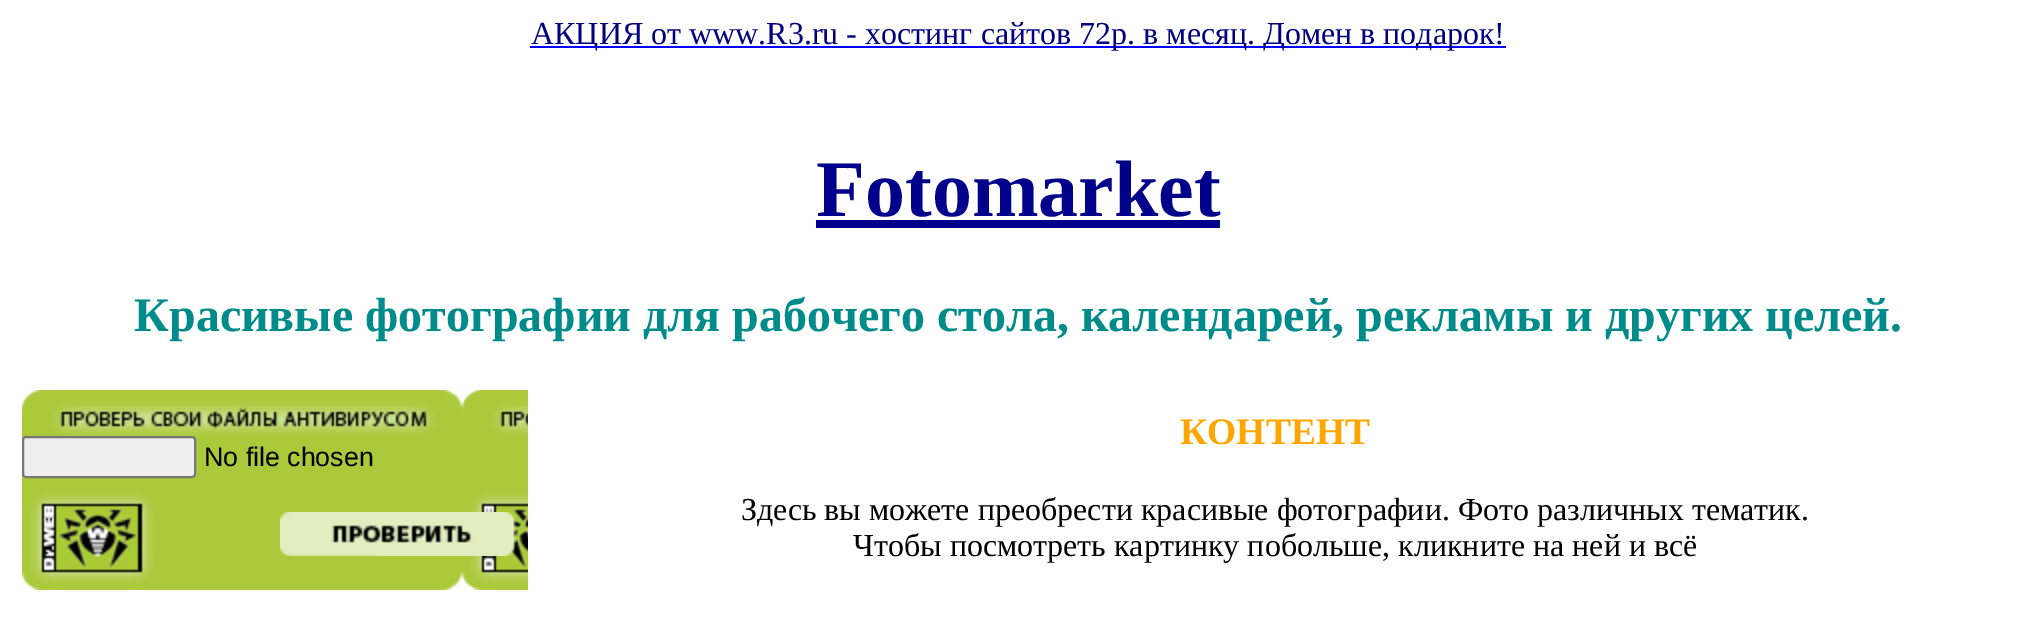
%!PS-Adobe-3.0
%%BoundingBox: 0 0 2036 637
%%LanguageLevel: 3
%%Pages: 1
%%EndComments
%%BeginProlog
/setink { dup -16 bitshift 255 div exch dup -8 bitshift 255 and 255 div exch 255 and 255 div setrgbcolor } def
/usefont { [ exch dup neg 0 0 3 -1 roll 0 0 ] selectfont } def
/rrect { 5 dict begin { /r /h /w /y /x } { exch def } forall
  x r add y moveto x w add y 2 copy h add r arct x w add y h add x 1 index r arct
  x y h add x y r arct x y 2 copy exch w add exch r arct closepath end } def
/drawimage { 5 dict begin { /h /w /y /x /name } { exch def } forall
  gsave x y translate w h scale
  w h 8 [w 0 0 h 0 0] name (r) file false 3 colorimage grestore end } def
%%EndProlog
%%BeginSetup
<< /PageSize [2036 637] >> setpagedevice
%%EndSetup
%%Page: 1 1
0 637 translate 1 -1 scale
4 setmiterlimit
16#FFFFFF setink
0 0 2036 637 rectfill
16#0000FF setink
530 46 976 2 rectfill
/LiberationSerif-Regular 32 usefont
16#000080 setink
531 44 moveto (АКЦИЯ от www.R3.ru - хостинг сайтов 72р. в месяц. Домен в подарок!) show
/LiberationSerif-Bold 80 usefont
16#00008B setink
816 216 moveto (Fotomarket) show
816 220 404 8 rectfill
/LiberationSerif-Bold 48 usefont
16#008B8B setink
134 331 moveto (Красивые фотографии для рабочего стола, календарей, рекламы и других целей.) show
(img1.raw) 22 390 506 200 drawimage
16#EFEFEF setink
23 437 172 40 3 rrect gsave fill grestore
16#767676 setink
2 setlinewidth
stroke
/LiberationSans-Regular 26.75 usefont
16#000000 setink
204 466 moveto (No file chosen) show
(img2.raw) 280 512 236 44 drawimage
/LiberationSerif-Bold 37.5 usefont
16#FFA500 setink
1180 444 moveto (КОНТЕНТ) show
/LiberationSerif-Regular 32 usefont
16#000000 setink
741 520 moveto (Здесь вы можете преобрести красивые фотографии. Фото различных тематик.) show
853 556 moveto (Чтобы посмотреть картинку побольше, кликните на ней и всё) show
showpage
%%EOF
